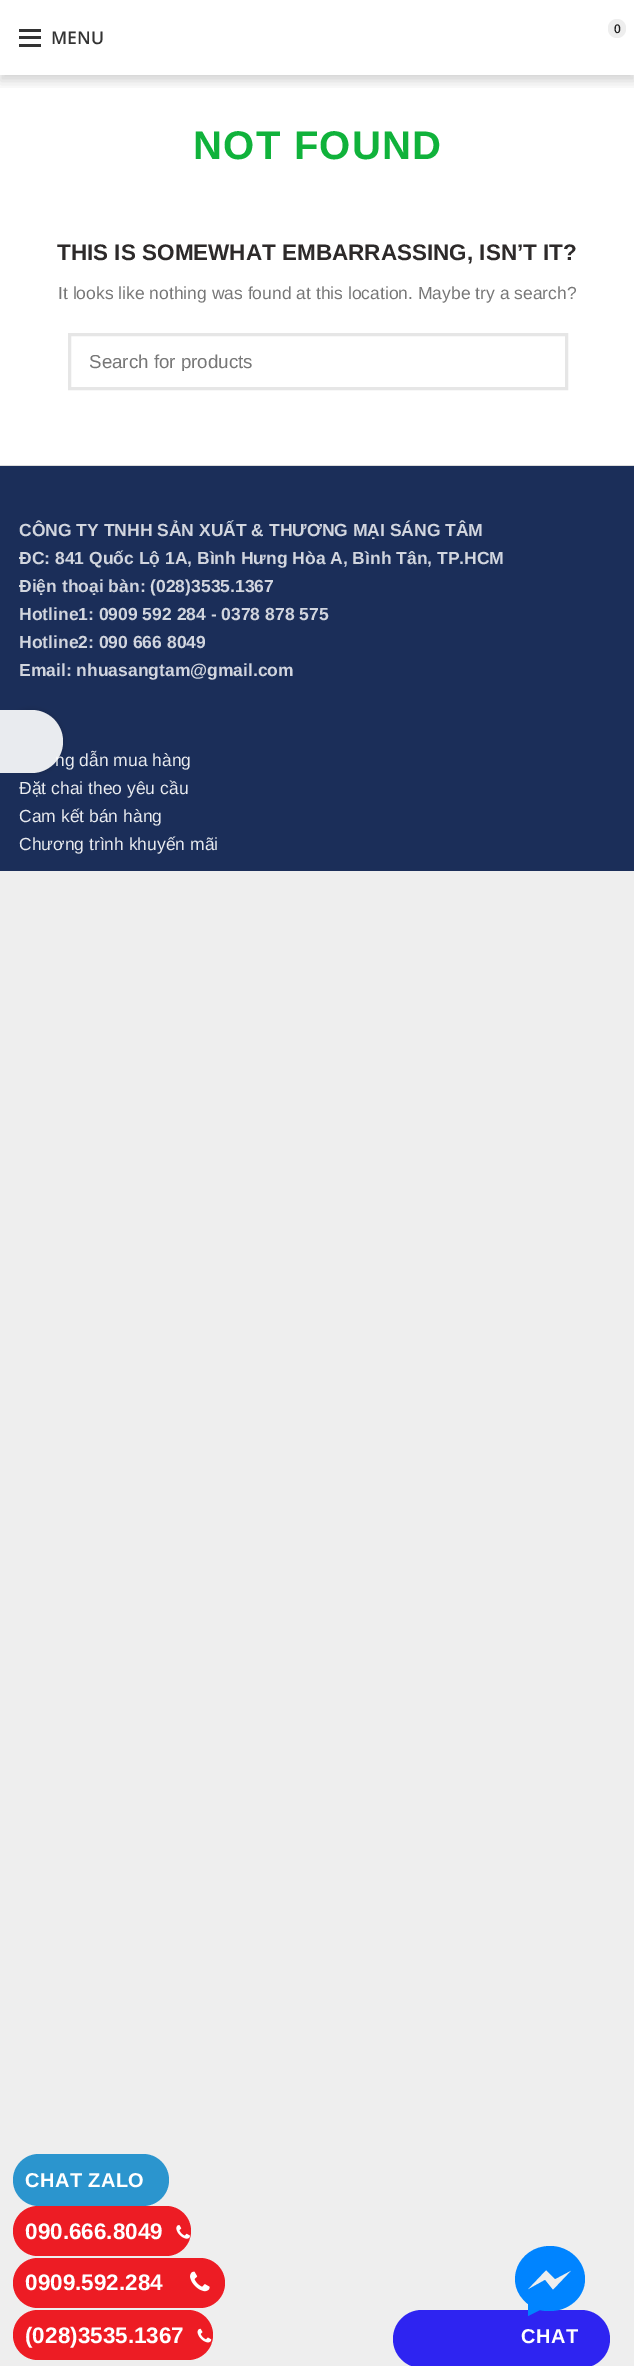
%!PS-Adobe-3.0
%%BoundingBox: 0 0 634 2366
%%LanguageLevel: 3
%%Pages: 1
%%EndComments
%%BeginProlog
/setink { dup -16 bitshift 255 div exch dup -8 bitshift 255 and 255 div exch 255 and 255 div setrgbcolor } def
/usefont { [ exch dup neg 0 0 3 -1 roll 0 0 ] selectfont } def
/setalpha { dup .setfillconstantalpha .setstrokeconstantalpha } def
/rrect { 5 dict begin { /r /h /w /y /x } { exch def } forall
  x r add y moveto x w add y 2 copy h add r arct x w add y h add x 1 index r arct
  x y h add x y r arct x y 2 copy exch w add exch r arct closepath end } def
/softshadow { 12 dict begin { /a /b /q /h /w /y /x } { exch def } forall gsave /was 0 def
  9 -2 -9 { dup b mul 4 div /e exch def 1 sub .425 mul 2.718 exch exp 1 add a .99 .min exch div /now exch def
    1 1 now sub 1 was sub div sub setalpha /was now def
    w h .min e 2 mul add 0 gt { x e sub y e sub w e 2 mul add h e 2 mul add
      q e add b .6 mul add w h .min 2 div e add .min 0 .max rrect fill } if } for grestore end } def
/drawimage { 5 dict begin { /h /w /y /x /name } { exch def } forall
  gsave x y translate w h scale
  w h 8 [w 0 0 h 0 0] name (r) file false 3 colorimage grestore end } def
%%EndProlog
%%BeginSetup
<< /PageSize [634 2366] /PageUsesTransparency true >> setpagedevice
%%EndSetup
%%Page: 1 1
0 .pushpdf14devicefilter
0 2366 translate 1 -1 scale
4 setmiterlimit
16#EEEEEE setink
0 0 634 2366 rectfill
16#FFFFFF setink
0 0 634 465 rectfill
gsave
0 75 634 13 rectclip
16#101010 setink
0 6 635 75 0 6 0.18 softshadow
grestore
16#EEEEEE setink
608 19 18 19 9 rrect fill
/OpenSans-SemiBold 12 usefont
16#212121 setink
614 33 moveto (0) show
[
    [19 36 22 3 16#333333]
    [19 29 22 3 16#333333]
    [19 44 22 3 16#333333]
] { aload pop setink rectfill } forall
/OpenSans-SemiBold 17.5 usefont
51 44 moveto (MENU) show
/LiberationSans-Bold 40 usefont
16#10B23B setink
193 159 moveto 1.25 0 (NOT FOUND) ashow
/LiberationSans-Bold 22.5 usefont
16#2D2A2A setink
57 260 moveto (THIS IS SOMEWHAT EMBARRASSING, ISN’T IT?) show
/LiberationSans-Regular 17.5 usefont
16#777777 setink
58 299 moveto (It looks like nothing was found at this location. Maybe try a search?) show
16#E6E6E6 setink
3 setlinewidth
69.5 334.5 497 54 rectstroke
gsave
89 350 414 21 rectclip
/LiberationSans-Regular 18.75 usefont
16#777777 setink
89 368 moveto (Search for products) show
grestore
16#DDDDDD setink
0 465 634 1 rectfill
16#1B2E59 setink
0 466 634 405 rectfill
/LiberationSans-Bold 17.5 usefont
16#D1D5DE setink
[
    [(CÔNG TY TNHH SẢN XUẤT & THƯƠNG MẠI SÁNG TÂM) 19 536]
    [(ĐC: 841 Quốc Lộ 1A, Bình Hưng Hòa A, Bình Tân, TP.HCM) 19 564]
    [(Điện thoại bàn: \(028\)3535.1367) 19 592]
    [(Hotline1: 0909 592 284 - 0378 878 575) 19 620]
    [(Hotline2: 090 666 8049) 19 648]
    [(Email: nhuasangtam@gmail.com) 19 676]
] { aload pop moveto show } forall
/LiberationSans-Regular 17.5 usefont
16#E8EAEE setink
[
    [(ng dẫn mua hàng) 55 766]
    [(Đặt chai theo yêu cầu) 19 794]
    [(Cam kết bán hàng) 19 822]
    [(Chương trình khuyến mãi) 19 850]
] { aload pop moveto show } forall
gsave
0 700 moveto 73 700 lineto 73 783 lineto 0 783 lineto closepath 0 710 moveto 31.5 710 lineto 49 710 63 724 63 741.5 curveto 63 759 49 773 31.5 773 curveto 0 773 lineto closepath eoclip newpath
16#000000 setink
0 710 63 63 31.5 3 0.17 softshadow
grestore
0.9 setalpha
16#FFFFFF setink
0 710 moveto 31.5 710 lineto 49 710 63 724 63 741.5 curveto 63 759 49 773 31.5 773 curveto 0 773 lineto closepath fill
1 setalpha
16#2B95CE setink
13 2154 156 52 26 rrect fill
/LiberationSans-Bold 20 usefont
16#FFFFFF setink
25 2187 moveto 0.4 0 (CHAT ZALO) ashow
16#ED1C24 setink
13 2206 178 50 25 rrect fill
/LiberationSans-Bold 22.5 usefont
16#FFFFFF setink
25 2239 moveto (090.666.8049) show
(img1.raw) 176 2225 14 14 drawimage
16#ED1C24 setink
13 2258 212 50 25 rrect fill
16#FFFFFF setink
25 2290 moveto (0909.592.284) show
(img2.raw) 190 2271 20 21 drawimage
16#2E24F1 setink
393 2310 217 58 29 rrect fill
16#0084FF setink
550 2246 moveto 518 2246 502 2284 528 2304 curveto 528 2316 lineto 540 2310 lineto 543 2311 547 2311 550 2311 curveto 569 2311 585 2297 585 2279 curveto 585 2261 569 2246 550 2246 curveto closepath 553 2290 moveto 545 2280 lineto 527 2290 lineto 546 2270 lineto 555 2279 lineto 572 2270 lineto closepath fill
16#ED1C24 setink
13 2310 200 50 25 rrect fill
16#FFFFFF setink
25 2343 moveto (\(028\)3535.1367) show
(img3.raw) 197 2328 15 15 drawimage
/LiberationSans-Bold 20 usefont
521 2343 moveto 0.4 0 (CHAT) ashow
.poppdf14devicefilter showpage
%%EOF
